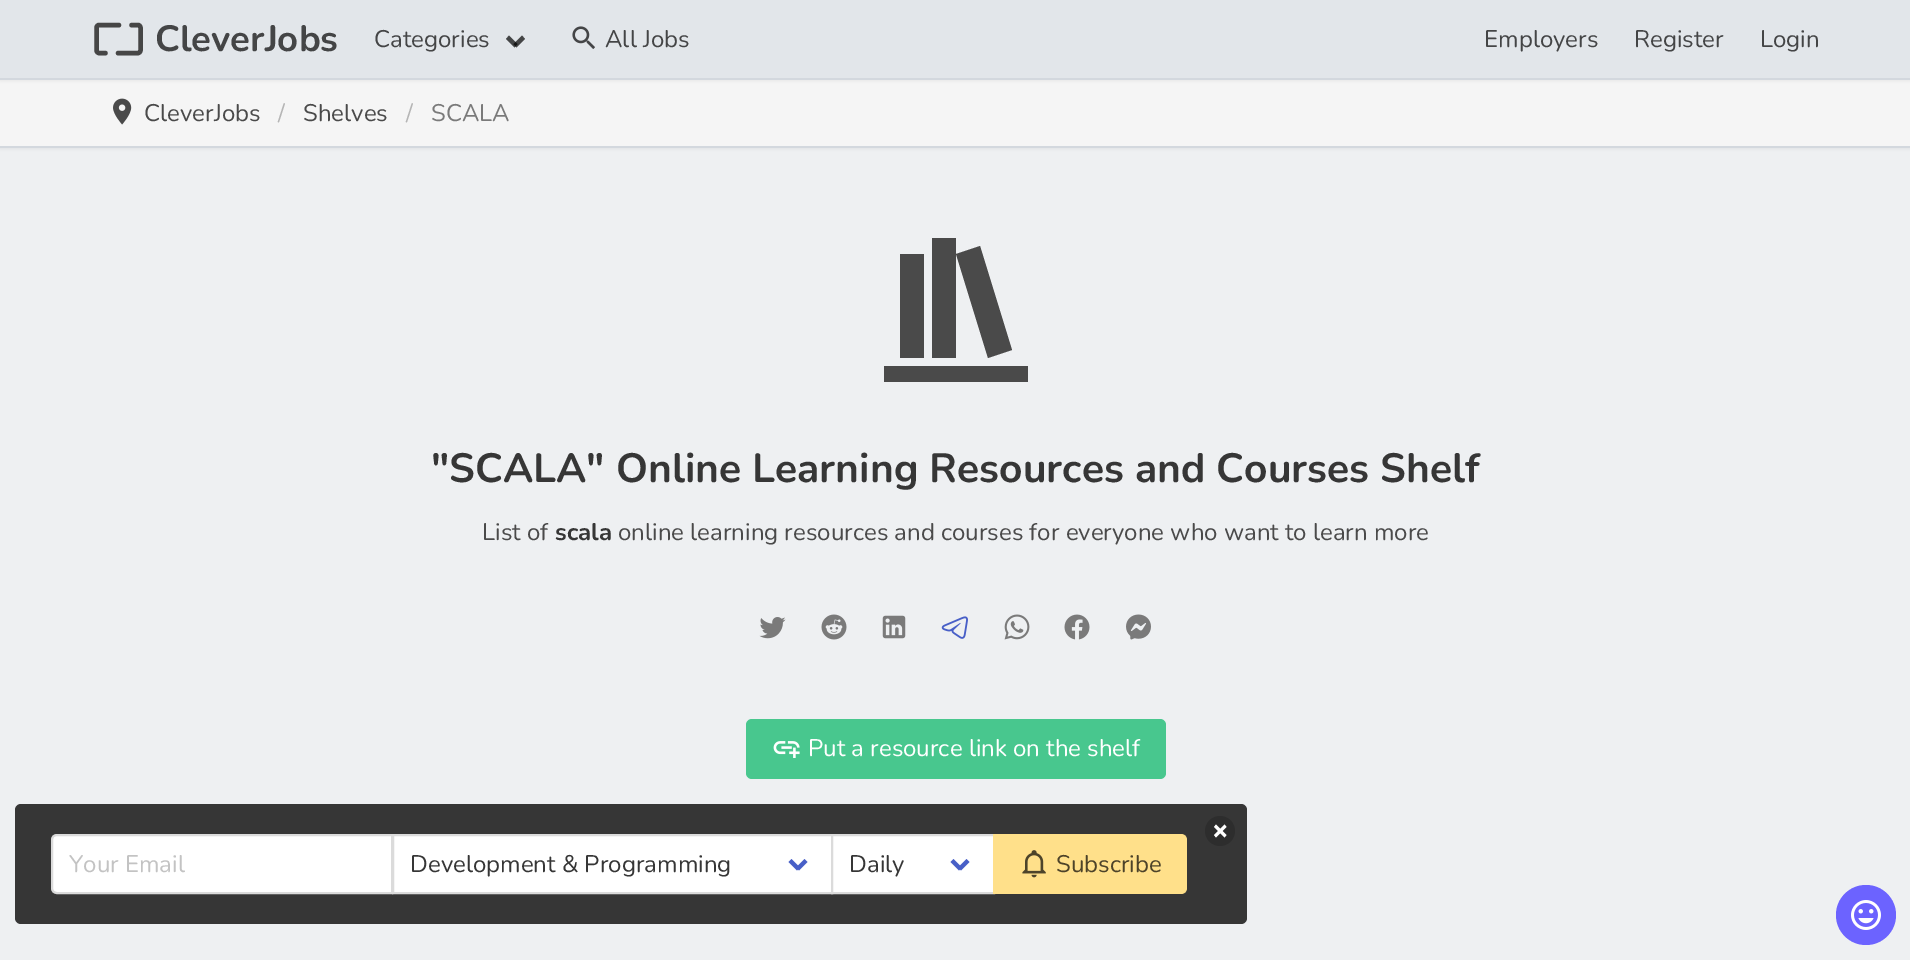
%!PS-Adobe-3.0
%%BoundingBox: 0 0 1910 960
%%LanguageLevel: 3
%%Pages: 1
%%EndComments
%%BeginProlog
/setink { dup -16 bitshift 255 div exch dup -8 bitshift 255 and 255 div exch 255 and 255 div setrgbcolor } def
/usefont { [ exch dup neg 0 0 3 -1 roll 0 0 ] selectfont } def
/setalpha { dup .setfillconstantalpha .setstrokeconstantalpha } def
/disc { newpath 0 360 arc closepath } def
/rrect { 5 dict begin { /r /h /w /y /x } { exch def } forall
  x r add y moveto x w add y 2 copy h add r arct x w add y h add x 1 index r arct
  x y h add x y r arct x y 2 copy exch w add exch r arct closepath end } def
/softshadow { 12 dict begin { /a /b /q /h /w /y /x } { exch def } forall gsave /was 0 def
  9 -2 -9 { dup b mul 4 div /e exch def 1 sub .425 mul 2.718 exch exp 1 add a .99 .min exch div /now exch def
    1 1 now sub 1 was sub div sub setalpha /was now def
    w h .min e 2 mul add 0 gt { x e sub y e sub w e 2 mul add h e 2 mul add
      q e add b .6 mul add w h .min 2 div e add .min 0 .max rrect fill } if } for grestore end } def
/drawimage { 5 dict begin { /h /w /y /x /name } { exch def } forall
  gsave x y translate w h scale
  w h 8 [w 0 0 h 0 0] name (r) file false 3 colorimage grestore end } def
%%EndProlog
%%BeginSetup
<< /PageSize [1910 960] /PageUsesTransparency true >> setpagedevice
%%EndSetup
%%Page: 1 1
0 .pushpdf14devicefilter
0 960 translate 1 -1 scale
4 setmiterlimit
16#EEF0F2 setink
0 0 1910 960 rectfill
16#000000 setink
0 81 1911 68 0 1.5 0.05 softshadow
16#F5F5F5 setink
0 80 1910 66 rectfill
16#000000 setink
0 2 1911 79 0 1.5 0.05 softshadow
16#E2E6EA setink
0 0 1910 78 rectfill
16#D3D8DE setink
0 78 1910 2 rectfill
16#464646 setink
4.5 setlinewidth
1 setlinecap
1 setlinejoin
131.5 25 moveto 138 25 lineto 139.5 25 140.5 26.5 140.5 28 curveto 140.5 50 lineto 140.5 51.5 139.5 53 138 53 curveto 118 53 lineto 105.5 53 moveto 99 53 lineto 97.5 53 96.5 51.5 96.5 50 curveto 96.5 28 lineto 96.5 26.5 97.5 25 99 25 curveto 119 25 lineto stroke
/Nunito-Bold 36.5 usefont
16#444546 setink
155 51 moveto (CleverJobs) show
/Nunito-Regular 24 usefont
374 47 moveto (Categories) show
513.5 44 moveto 522 35.5 lineto 525 39 lineto 516.5 47.5 lineto closepath fill
0.7 setalpha
16#000000 setink
506 39 moveto 509 35.5 lineto 517.5 44 lineto 514.5 47.5 lineto closepath fill
1 setalpha
(img1.raw) 572 26 23 23 drawimage
16#444546 setink
[
    [(All Jobs) 605 47]
    [(Employers) 1484 47]
    [(Register) 1634 47]
    [(Login) 1760 47]
] { aload pop moveto show } forall
16#D3D8DE setink
0 146 1910 2 rectfill
(img2.raw) 113 98 19 27 drawimage
16#4A4A4A setink
144 121 moveto (CleverJobs) show
16#B5B5B5 setink
278 121 moveto (/) show
16#4A4A4A setink
303 121 moveto (Shelves) show
16#B5B5B5 setink
406 121 moveto (/) show
16#7A7A7A setink
431 121 moveto (SCALA) show
16#4A4A4A setink
932 238 moveto 932 358 lineto 956 358 lineto 956 238 lineto 932 238 lineto 956 254 moveto 988 358 lineto 1012 350 lineto 980 246 lineto 956 254 lineto 900 254 moveto 900 358 lineto 924 358 lineto 924 254 lineto 900 254 lineto 884 366 moveto 884 382 lineto 1028 382 lineto 1028 366 lineto closepath fill
/Nunito-Bold 40.8 usefont
16#363636 setink
431 482 moveto ("SCALA" Online Learning Resources and Courses Shelf) show
/Nunito-Regular 24 usefont
16#4A4A4A setink
482 540 moveto (List of) show
/Nunito-Bold 24 usefont
16#363636 setink
555 540 moveto (scala) show
/Nunito-Regular 24 usefont
16#4A4A4A setink
618 540 moveto (online learning resources and courses for everyone who want to learn more) show
(img3.raw) 759 617 27 22 drawimage
(img4.raw) 821 614 26 26 drawimage
(img5.raw) 882 615 24 24 drawimage
(img6.raw) 941 616 27 23 drawimage
(img7.raw) 1004 614 26 26 drawimage
(img8.raw) 1064 614 26 26 drawimage
(img9.raw) 1126 614 25 26 drawimage
16#48C78E setink
746 719 420 60 6 rrect fill
(img10.raw) 773 741 27 17 drawimage
16#FFFFFF setink
808 756 moveto (Put a resource link on the shelf) show
16#363636 setink
15 804 1232 120 6 rrect fill
16#2D2D2D setink
1220 831 15 disc fill
16#FFFFFF setink
1216 824.5 moveto 1226.5 835 lineto 1224.5 837.5 lineto 1214 827 lineto closepath fill
1224.5 824.5 moveto 1226.5 827 lineto 1216 837.5 lineto 1214 835 lineto closepath fill
57 835 moveto 392 835 lineto 392 893 lineto 57 893 lineto 54 893 52 891 52 888 curveto 52 840 lineto 52 837 54 835 57 835 curveto closepath gsave fill grestore
16#DBDBDB setink
2 setlinewidth
0 setlinecap
0 setlinejoin
stroke
16#C3C3C3 setink
69 872 moveto (Your Email) show
16#FFFFFF setink
393 835 moveto 832 835 lineto 832 893 lineto 393 893 lineto closepath gsave fill grestore
16#DBDBDB setink
stroke
16#363636 setink
410 872 moveto (Development & Programming) show
16#485FC7 setink
796 867.5 moveto 804.5 859 lineto 807.5 862 lineto 799 870.5 lineto closepath fill
788.5 862 moveto 791.5 859 lineto 800 867.5 lineto 797 870.5 lineto closepath fill
16#FFFFFF setink
832 835 moveto 994 835 lineto 994 893 lineto 832 893 lineto closepath gsave fill grestore
16#DBDBDB setink
stroke
16#363636 setink
849 872 moveto (Daily) show
16#485FC7 setink
958 867.5 moveto 966.5 859 lineto 969.5 862 lineto 961 870.5 lineto closepath fill
950.5 862 moveto 953.5 859 lineto 962 867.5 lineto 959 870.5 lineto closepath fill
16#FFE08A setink
993 834 moveto 1181 834 lineto 1184.5 834 1187 836.5 1187 840 curveto 1187 888 lineto 1187 891.5 1184.5 894 1181 894 curveto 993 894 lineto closepath fill
(img11.raw) 1022 850 24 28 drawimage
16#4D4329 setink
1056 872 moveto (Subscribe) show
16#6C63FF setink
1866 915 30 disc fill
(img12.raw) 1851 900 30 30 drawimage
.poppdf14devicefilter showpage
%%EOF
